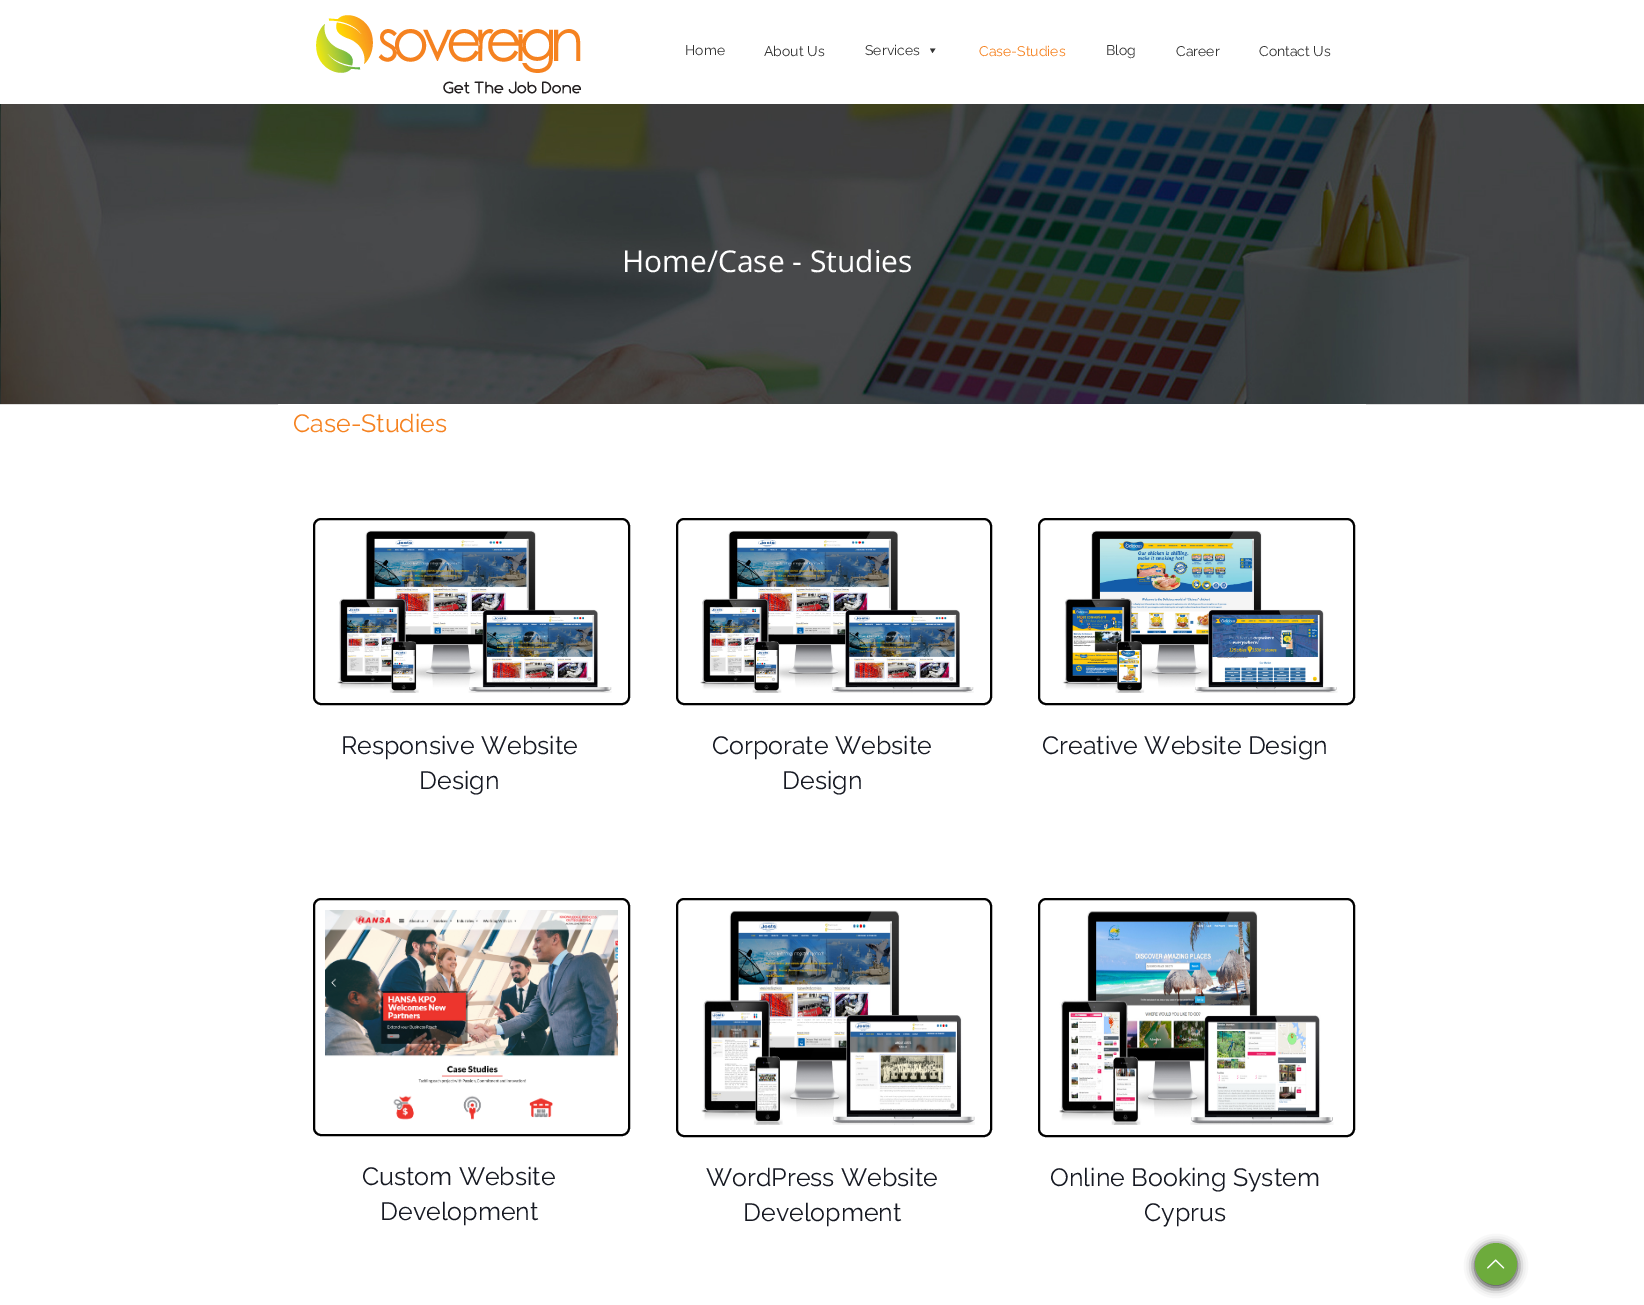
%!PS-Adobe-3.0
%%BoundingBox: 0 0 1644 1305
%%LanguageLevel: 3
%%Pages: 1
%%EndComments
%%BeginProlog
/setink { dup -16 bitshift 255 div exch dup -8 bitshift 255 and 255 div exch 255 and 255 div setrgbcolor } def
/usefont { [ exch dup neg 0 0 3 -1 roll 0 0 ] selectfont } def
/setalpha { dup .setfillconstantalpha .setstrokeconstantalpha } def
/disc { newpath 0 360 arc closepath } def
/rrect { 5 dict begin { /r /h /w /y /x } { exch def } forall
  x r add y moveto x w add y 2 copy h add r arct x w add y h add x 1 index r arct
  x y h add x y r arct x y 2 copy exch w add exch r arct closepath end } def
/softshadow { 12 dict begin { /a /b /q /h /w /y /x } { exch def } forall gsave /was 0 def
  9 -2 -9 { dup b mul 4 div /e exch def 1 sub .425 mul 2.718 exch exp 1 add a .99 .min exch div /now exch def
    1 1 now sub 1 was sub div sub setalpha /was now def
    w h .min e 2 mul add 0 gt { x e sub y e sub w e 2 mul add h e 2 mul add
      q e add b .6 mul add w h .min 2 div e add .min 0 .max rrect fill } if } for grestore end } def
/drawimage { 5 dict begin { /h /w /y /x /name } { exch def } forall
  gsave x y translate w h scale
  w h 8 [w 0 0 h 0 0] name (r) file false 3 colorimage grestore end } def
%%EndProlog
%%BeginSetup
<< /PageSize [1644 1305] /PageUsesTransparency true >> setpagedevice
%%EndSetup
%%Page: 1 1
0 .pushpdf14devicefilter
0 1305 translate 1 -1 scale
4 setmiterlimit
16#FFFFFF setink
0 0 1644 1305 rectfill
16#DDDDDD setink
0 404 1644 1 rectfill
(img1.raw) 316 15 265 79 drawimage
/Raleway-Regular 14 usefont
16#333333 setink
[
    [(Home) 685 55]
    [(About Us) 764 56]
    [(Services) 865 55]
] { aload pop moveto show } forall
935.5 48.5 moveto 932.5 53 lineto 930 48.5 lineto closepath fill
16#F58220 setink
979 56 moveto (Case-Studies) show
16#333333 setink
[
    [(Blog) 1106 55]
    [(Career) 1176 56]
    [(Contact Us) 1259 56]
] { aload pop moveto show } forall
(img2.raw) 0 104 1644 300 drawimage
/OpenSans-Regular 30 usefont
16#FFFFFF setink
622 272 moveto (Home/Case - Studies) show
278 404 1088 1 rectfill
/Raleway-Regular 25 usefont
16#F58220 setink
293 432 moveto (Case-Studies) show
16#000000 setink
2 setlinewidth
314 519 315 185 7 rrect stroke
(img3.raw) 337 530 275 163 drawimage
16#161922 setink
341 754 moveto (Responsive Website) show
419 789 moveto (Design) show
16#000000 setink
677 519 314 185 7 rrect stroke
(img4.raw) 700 530 274 163 drawimage
16#161922 setink
712 754 moveto (Corporate Website) show
782 789 moveto (Design) show
16#000000 setink
1039 519 315 185 7 rrect stroke
(img5.raw) 1062 530 276 163 drawimage
16#161922 setink
1042 754 moveto (Creative Website Design) show
16#000000 setink
314 899 315 236 7 rrect stroke
(img6.raw) 325 910 293 210 drawimage
16#161922 setink
362 1185 moveto (Custom Website) show
380 1220 moveto (Development) show
16#000000 setink
677 899 314 237 7 rrect stroke
(img7.raw) 701 910 274 215 drawimage
16#161922 setink
706 1186 moveto (WordPress Website) show
743 1221 moveto (Development) show
16#000000 setink
1039 899 315 237 7 rrect stroke
(img8.raw) 1059 911 275 214 drawimage
16#161922 setink
1050 1186 moveto (Online Booking System) show
1144 1221 moveto (Cyprus) show
16#212121 setink
1475 1245 42 42 21 5 1 softshadow
16#6DAB3C setink
1496 1264 21 disc fill
(img9.raw) 1487 1259 18 10 drawimage
.poppdf14devicefilter showpage
%%EOF
